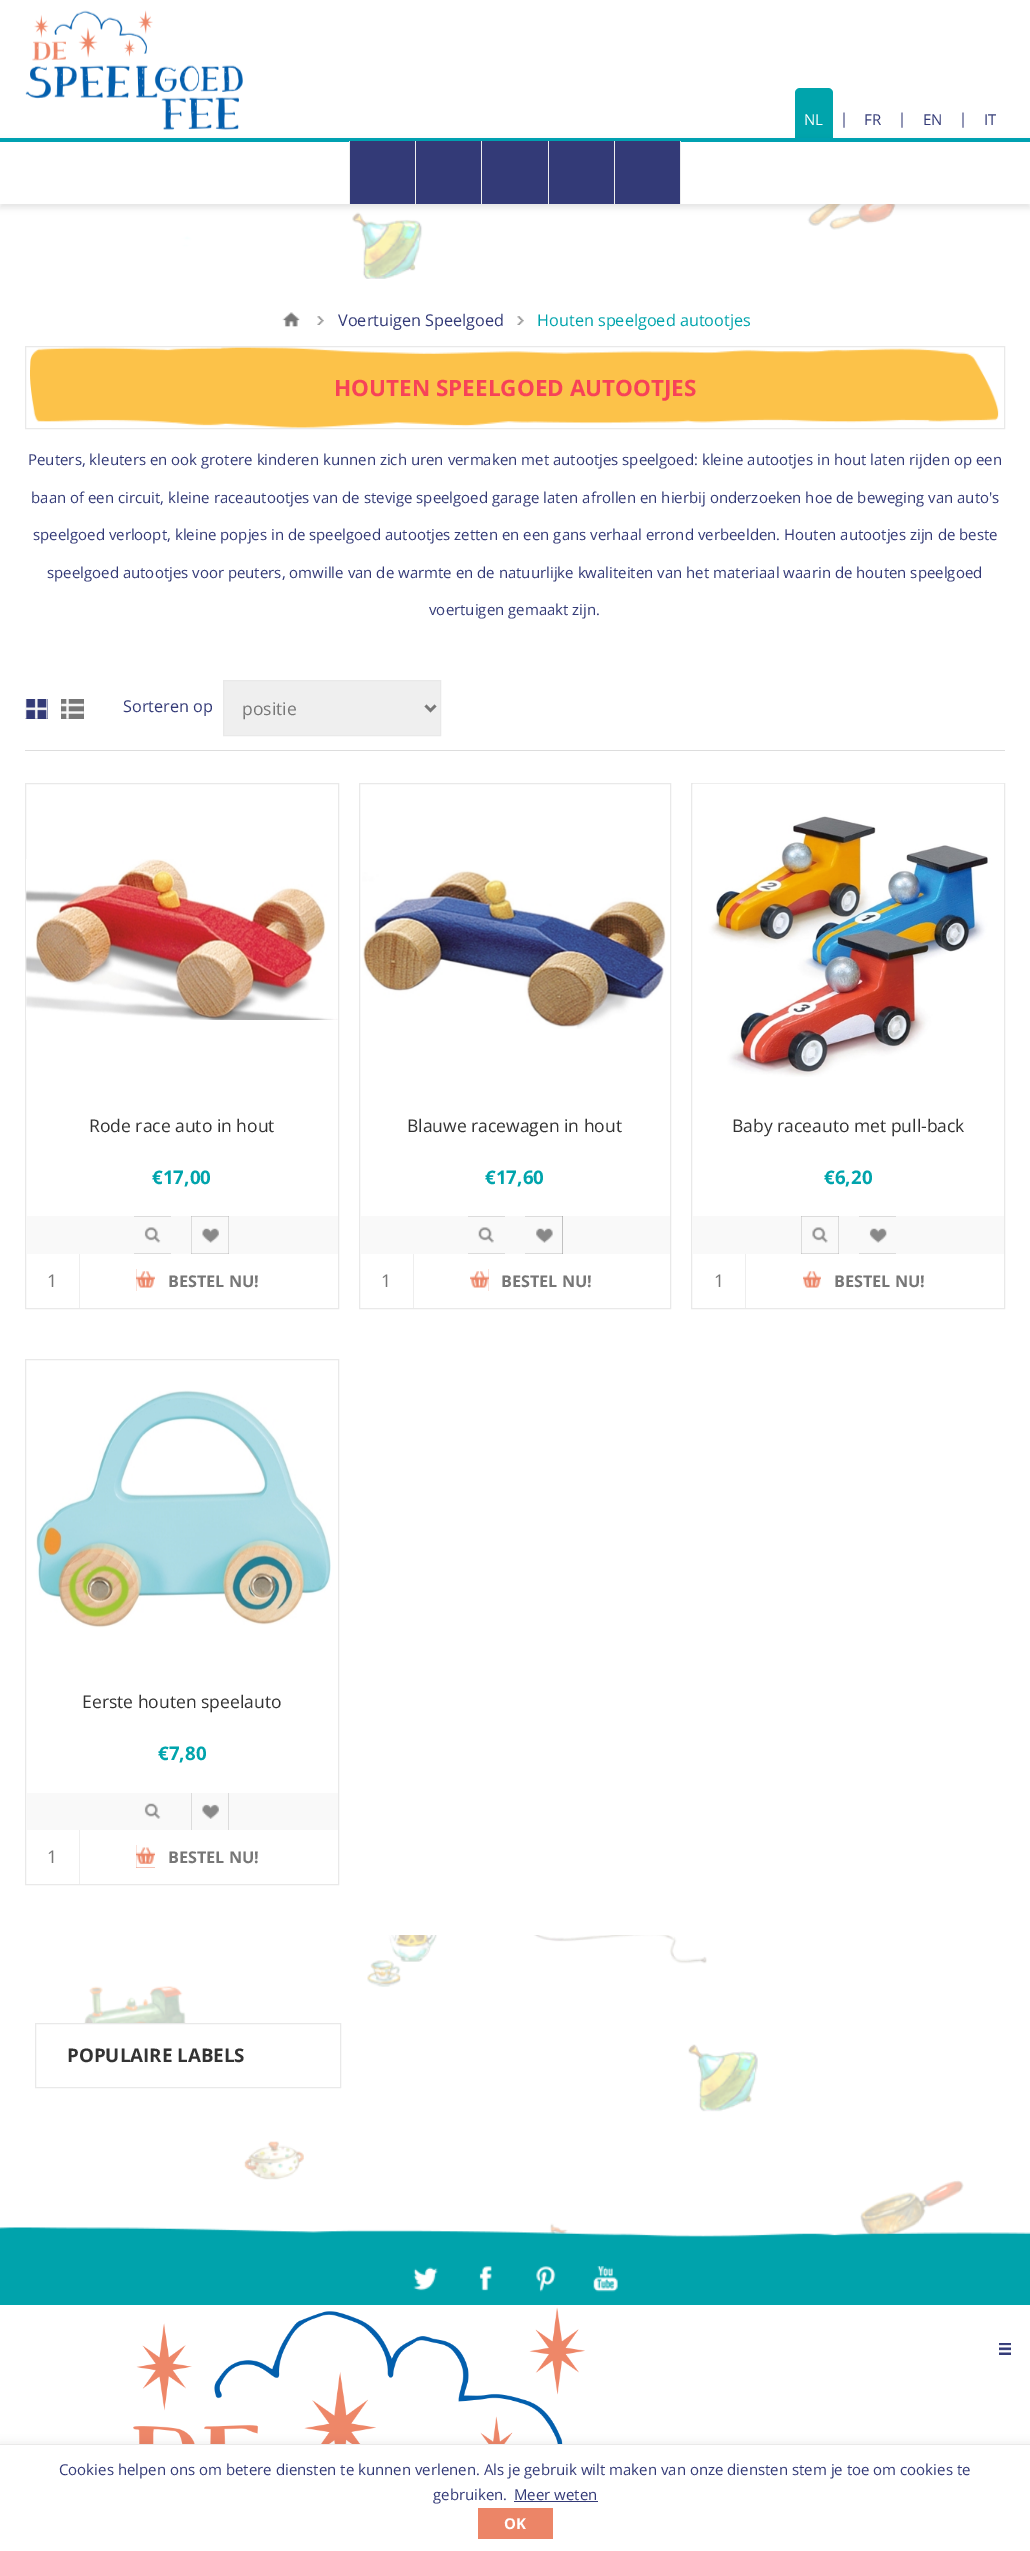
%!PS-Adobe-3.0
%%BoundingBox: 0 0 1030 2551
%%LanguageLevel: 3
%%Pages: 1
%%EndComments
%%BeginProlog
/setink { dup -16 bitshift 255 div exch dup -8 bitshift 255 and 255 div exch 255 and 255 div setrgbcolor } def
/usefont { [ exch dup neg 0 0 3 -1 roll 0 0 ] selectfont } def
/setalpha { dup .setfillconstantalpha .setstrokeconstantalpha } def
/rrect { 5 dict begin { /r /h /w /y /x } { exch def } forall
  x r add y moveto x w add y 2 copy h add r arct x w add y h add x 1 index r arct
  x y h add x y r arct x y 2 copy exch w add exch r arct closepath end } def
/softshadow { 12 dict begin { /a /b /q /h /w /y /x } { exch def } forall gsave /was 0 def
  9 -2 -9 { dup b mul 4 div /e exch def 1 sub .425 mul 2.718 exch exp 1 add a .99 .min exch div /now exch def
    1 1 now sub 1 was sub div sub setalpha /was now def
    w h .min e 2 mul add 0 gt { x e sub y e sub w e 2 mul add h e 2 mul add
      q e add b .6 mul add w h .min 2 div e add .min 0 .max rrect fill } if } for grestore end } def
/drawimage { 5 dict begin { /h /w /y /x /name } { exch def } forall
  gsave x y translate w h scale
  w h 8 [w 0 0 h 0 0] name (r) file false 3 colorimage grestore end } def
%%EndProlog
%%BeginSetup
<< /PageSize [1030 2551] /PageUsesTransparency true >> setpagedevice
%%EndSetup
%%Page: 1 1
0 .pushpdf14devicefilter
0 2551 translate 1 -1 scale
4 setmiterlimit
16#FFFFFF setink
0 0 1030 2551 rectfill
(img1.raw) 83 204 881 2032 drawimage
(img2.raw) 25 10 218 120 drawimage
16#00A4AC setink
795 88 38 65 5 rrect fill
/OpenSans-Regular 15 usefont
16#FFFFFF setink
804 125 moveto (NL) show
16#333A77 setink
[
    [(|) 840 124]
    [(FR) 864 125]
    [(|) 898 124]
    [(EN) 923 125]
    [(|) 959 124]
    [(IT) 984 125]
] { aload pop moveto show } forall
16#000000 setink
0 141 1030 67 0 3 0.1 softshadow
[
    [0 142 1030 62 16#FFFFFF]
    [0 138 1030 4 16#00A1B1]
    [350 141 65 63 16#333A77]
    [415 141 1 63 16#EEEEEE]
    [349 141 1 63 16#EEEEEE]
    [416 141 132 63 16#333A77]
    [481 141 1 63 16#EEEEEE]
    [548 141 1 63 16#EEEEEE]
    [549 141 65 63 16#333A77]
    [614 141 1 63 16#EEEEEE]
    [615 141 65 63 16#333A77]
    [680 141 1 63 16#EEEEEE]
] { aload pop setink rectfill } forall
(img3.raw) 282 312 18 15 drawimage
(img4.raw) 317 316 7 9 drawimage
/OpenSans-Regular 16.25 usefont
16#333A77 setink
338 326 moveto (Voertuigen Speelgoed) show
(img4.raw) 517 316 7 9 drawimage
16#00A4AC setink
537 326 moveto (Houten speelgoed autootjes) show
16#FFFFFF setink
83 347 864 1588 rectfill
(img5.raw) 30 347 969 81 drawimage
16#E9E9E9 setink
25.5 346.5 979 82 rectstroke
/OpenSans-Bold 22.5 usefont
16#F74258 setink
334 396 moveto (HOUTEN SPEELGOED AUTOOTJES) show
/OpenSans-Regular 15 usefont
16#333A77 setink
[
    [(Peuters, kleuters en ook grotere kinderen kunnen zich uren vermaken met autootjes speelgoed: kleine autootjes in hout laten rijden op een) 28 465]
    [(baan of een circuit, kleine raceautootjes van de stevige speelgoed garage laten afrollen en hierbij onderzoeken hoe de beweging van auto's) 31 503]
    [(speelgoed verloopt, kleine popjes in de speelgoed autootjes zetten en een gans verhaal errond verbeelden. Houten autootjes zijn de beste) 33 540]
    [(speelgoed autootjes voor peuters, omwille van de warmte en de natuurlijke kwaliteiten van het materiaal waarin de houten speelgoed) 47 578]
    [(voertuigen gemaakt zijn.) 429 615]
] { aload pop moveto show } forall
16#DDDDDD setink
25 750 980 1 rectfill
16#333A77 setink
25 699 23 20 rectfill
(img6.raw) 25 699 23 20 drawimage
16#777777 setink
61 699 23 20 rectfill
(img7.raw) 61 699 23 20 drawimage
/OpenSans-Regular 16.25 usefont
16#333A77 setink
123 712 moveto (Sorteren op) show
16#EFEFEF setink
223.5 680.5 moveto 440.5 680.5 lineto 440.5 735.5 lineto 223.5 735.5 lineto closepath gsave fill grestore
16#E9E9E9 setink
stroke
16#777777 setink
2.5 setlinewidth
425.5 705.5 moveto 430.5 710.5 lineto 435.5 705.5 lineto stroke
/OpenSans-Regular 17.5 usefont
242 715 moveto (positie) show
16#E9E9E9 setink
1 setlinewidth
25.5 783.5 313 525 rectstroke
(img8.raw) 26 859 312 161 drawimage
16#333333 setink
89 1132 moveto (Rode race auto in hout) show
/OpenSans-Bold 18.75 usefont
16#00A4AC setink
152 1184 moveto (€17,00) show
16#F9F9F9 setink
26 1216 312 38 rectfill
16#888888 setink
134 1216 37 38 rectfill
(img9.raw) 134 1216 37 38 drawimage
191 1216 38 38 rectfill
(img10.raw) 191 1216 38 38 drawimage
16#EEEEEE setink
79 1254 1 54 rectfill
/OpenSans-Regular 17.5 usefont
16#777777 setink
47 1287 moveto (1) show
16#EC8567 setink
136 1269 19 22 rectfill
(img11.raw) 136 1269 19 22 drawimage
/OpenSans-Bold 16.25 usefont
16#777777 setink
168 1287 moveto (BESTEL NU!) show
16#E9E9E9 setink
359.5 783.5 311 525 rectstroke
(img12.raw) 362 870 304 159 drawimage
/OpenSans-Regular 17.5 usefont
16#333333 setink
407 1132 moveto (Blauwe racewagen in hout) show
/OpenSans-Bold 18.75 usefont
16#00A4AC setink
485 1184 moveto (€17,60) show
16#F9F9F9 setink
360 1216 310 38 rectfill
16#888888 setink
468 1216 37 38 rectfill
(img13.raw) 468 1216 37 38 drawimage
525 1216 38 38 rectfill
(img14.raw) 525 1216 38 38 drawimage
16#EEEEEE setink
413 1254 1 54 rectfill
/OpenSans-Regular 17.5 usefont
16#777777 setink
381 1287 moveto (1) show
16#EC8567 setink
470 1269 19 22 rectfill
(img15.raw) 470 1269 19 22 drawimage
/OpenSans-Bold 16.25 usefont
16#777777 setink
501 1287 moveto (BESTEL NU!) show
16#E9E9E9 setink
691.5 783.5 313 525 rectstroke
(img16.raw) 693 783 311 294 drawimage
/OpenSans-Regular 17.5 usefont
16#333333 setink
732 1132 moveto (Baby raceauto met pull-back) show
/OpenSans-Bold 18.75 usefont
16#00A4AC setink
824 1184 moveto (€6,20) show
16#F9F9F9 setink
693 1216 311 38 rectfill
16#888888 setink
801 1216 38 38 rectfill
(img17.raw) 801 1216 38 38 drawimage
859 1216 37 38 rectfill
(img18.raw) 859 1216 37 38 drawimage
16#EEEEEE setink
745 1254 1 54 rectfill
/OpenSans-Regular 17.5 usefont
16#777777 setink
714 1287 moveto (1) show
16#EC8567 setink
803 1271 18 17 rectfill
(img19.raw) 803 1269 18 22 drawimage
/OpenSans-Bold 16.25 usefont
16#777777 setink
834 1287 moveto (BESTEL NU!) show
16#E9E9E9 setink
25.5 1359.5 313 525 rectstroke
(img20.raw) 36 1390 295 238 drawimage
/OpenSans-Regular 17.5 usefont
16#333333 setink
82 1708 moveto (Eerste houten speelauto) show
/OpenSans-Bold 18.75 usefont
16#00A4AC setink
158 1760 moveto (€7,80) show
16#F9F9F9 setink
26 1793 312 37 rectfill
16#888888 setink
144 1803 17 16 rectfill
(img21.raw) 134 1793 37 37 drawimage
191 1793 38 37 rectfill
(img22.raw) 191 1793 38 37 drawimage
16#EEEEEE setink
79 1830 1 54 rectfill
/OpenSans-Regular 17.5 usefont
16#777777 setink
47 1863 moveto (1) show
16#EC8567 setink
136 1845 19 23 rectfill
(img23.raw) 136 1845 19 23 drawimage
/OpenSans-Bold 16.25 usefont
16#777777 setink
168 1863 moveto (BESTEL NU!) show
16#FFFFFF setink
83 2024 111 36 rectfill
16#E9E9E9 setink
35.5 2023.5 305 64 rectstroke
/OpenSans-Bold 18.75 usefont
16#333333 setink
67 2062 moveto (POPULAIRE LABELS) show
(img24.raw) 0 2227 1030 78 drawimage
(img25.raw) 413 2267 25 24 drawimage
(img26.raw) 479 2266 13 25 drawimage
(img27.raw) 536 2266 20 26 drawimage
(img28.raw) 593 2266 25 26 drawimage
(img29.raw) 133 2307 452 137 drawimage
16#333A77 setink
999 2343 12 12 rectfill
(img30.raw) 999 2344 12 9 drawimage
16#000000 setink
0 2445 1030 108 0 5 0.1 softshadow
16#FFFFFF setink
0 2445 1030 106 rectfill
16#E9E9E9 setink
0 2444 1030 1 rectfill
/OpenSans-Regular 15 usefont
16#333A77 setink
[
    [(Cookies helpen ons om betere diensten te kunnen verlenen. Als je gebruik wilt maken van onze diensten stem je toe om cookies te) 59 2475]
    [(gebruiken.) 433 2500]
    [(Meer weten) 514 2500]
] { aload pop moveto show } forall
514 2501 84 1 rectfill
16#EC8567 setink
478 2508 75 31 rectfill
/OpenSans-Bold 15 usefont
16#FFFFFF setink
504 2529 moveto (OK) show
.poppdf14devicefilter showpage
%%EOF
